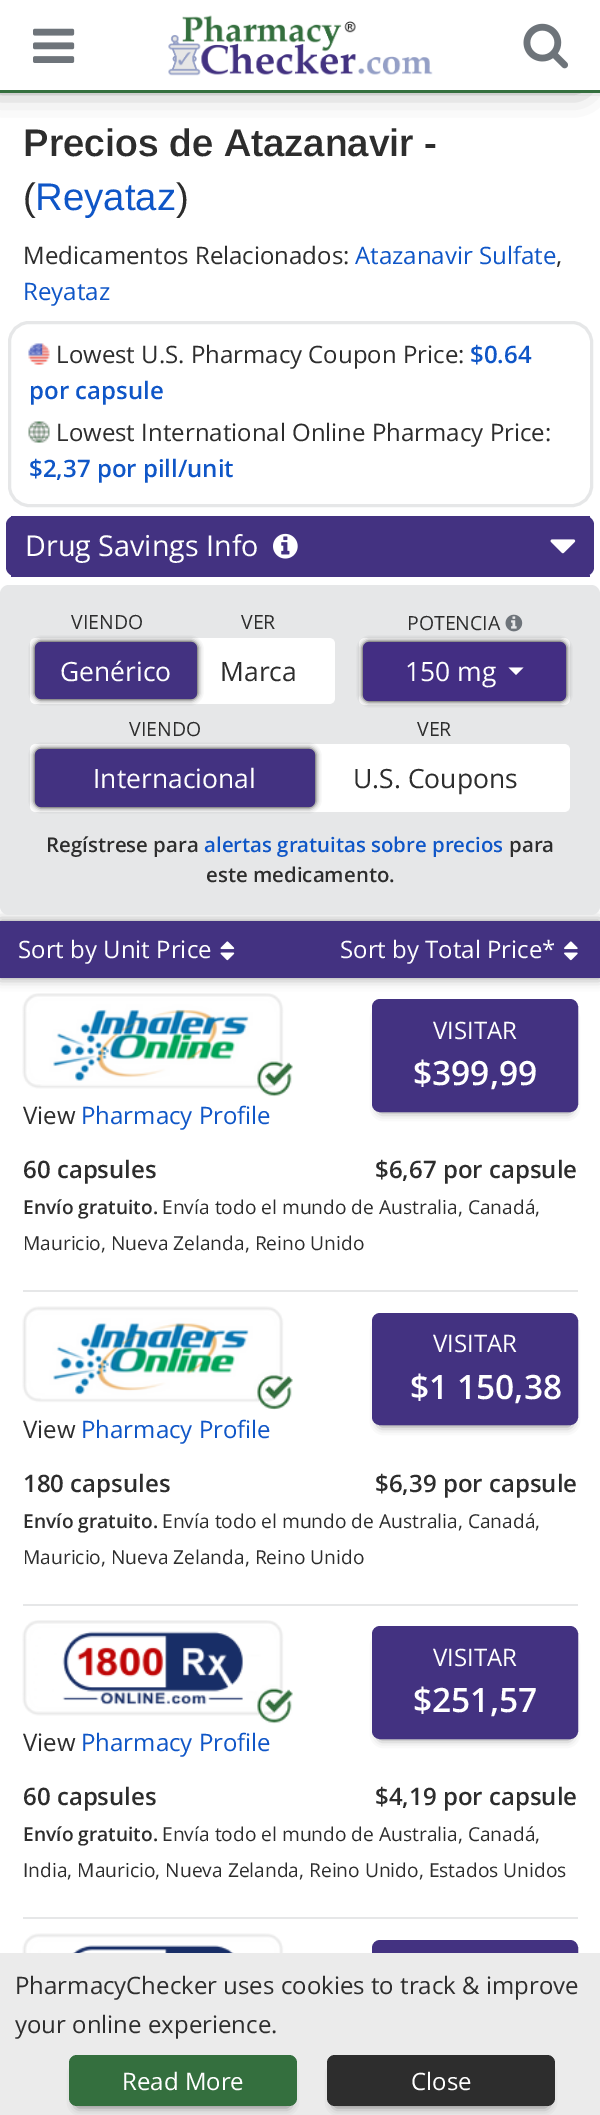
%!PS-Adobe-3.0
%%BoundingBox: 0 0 600 2115
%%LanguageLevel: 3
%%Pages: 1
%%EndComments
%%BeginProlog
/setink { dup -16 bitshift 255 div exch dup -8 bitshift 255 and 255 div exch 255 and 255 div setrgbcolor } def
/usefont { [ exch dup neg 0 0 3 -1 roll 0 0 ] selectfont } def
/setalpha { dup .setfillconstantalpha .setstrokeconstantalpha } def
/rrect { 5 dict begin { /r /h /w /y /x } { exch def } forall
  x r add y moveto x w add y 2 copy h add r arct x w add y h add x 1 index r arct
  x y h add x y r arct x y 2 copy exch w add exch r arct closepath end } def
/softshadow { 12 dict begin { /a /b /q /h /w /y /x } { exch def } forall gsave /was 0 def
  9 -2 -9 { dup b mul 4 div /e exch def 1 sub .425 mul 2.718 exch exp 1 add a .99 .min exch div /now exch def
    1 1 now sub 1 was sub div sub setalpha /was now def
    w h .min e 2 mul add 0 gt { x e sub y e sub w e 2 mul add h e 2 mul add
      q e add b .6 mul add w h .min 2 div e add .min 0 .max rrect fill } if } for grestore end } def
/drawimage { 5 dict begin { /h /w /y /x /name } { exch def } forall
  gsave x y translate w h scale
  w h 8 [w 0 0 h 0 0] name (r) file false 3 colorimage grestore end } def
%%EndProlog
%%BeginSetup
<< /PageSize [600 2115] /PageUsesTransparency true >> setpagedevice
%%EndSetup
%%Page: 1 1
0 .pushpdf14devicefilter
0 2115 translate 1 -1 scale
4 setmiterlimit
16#FFFFFF setink
0 0 600 2115 rectfill
16#000000 setink
-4 -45 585 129 0 15 0.62 softshadow
0.25 setalpha
[
    [0 93 600 3 16#C8C8C8]
] { aload pop setink rectfill } forall
1 setalpha
[
    [0 0 600 90 16#FFFFFF]
    [0 90 600 3 16#346F3E]
] { aload pop setink rectfill } forall
(img1.raw) 33 28 42 35 drawimage
(img2.raw) 168 15 265 61 drawimage
(img3.raw) 523 23 45 46 drawimage
/Arimo-SemiBold 38.4 usefont
16#2D2D2D setink
23 156 moveto (Precios de Atazanavir -) show
/Arimo-Regular 38.4 usefont
23 210 moveto (\() show
16#0F56C7 setink
35 210 moveto (Reyataz) show
16#2D2D2D setink
176 210 moveto (\)) show
/OpenSans-Regular 24 usefont
23 264 moveto (Medicamentos Relacionados:) show
16#0F56C7 setink
355 264 moveto (Atazanavir Sulfate) show
16#2D2D2D setink
556 264 moveto (,) show
16#0F56C7 setink
23 300 moveto (Reyataz) show
16#E6E7E8 setink
3 setlinewidth
9.5 322.5 582 183 19.5 rrect stroke
(img4.raw) 28 343 22 22 drawimage
16#2D2D2D setink
56 363 moveto (Lowest U.S. Pharmacy Coupon Price:) show
/OpenSans-SemiBold 24 usefont
16#0F56C7 setink
470 363 moveto ($0.64) show
29 399 moveto (por capsule) show
(img5.raw) 28 421 22 22 drawimage
/OpenSans-Regular 24 usefont
16#2D2D2D setink
56 441 moveto (Lowest International Online Pharmacy Price:) show
/OpenSans-SemiBold 24 usefont
16#0F56C7 setink
29 477 moveto ($2,37 por pill/unit) show
16#433281 setink
6 516 588 60 9 rrect fill
11 516 579 2 rectfill
11 575 579 2 rectfill
/OpenSans-Regular 28.75 usefont
16#FFFFFF setink
25 556 moveto (Drug Savings Info) show
(img6.raw) 273 533 25 26 drawimage
(img7.raw) 550 539 26 15 drawimage
16#000000 setink
0 921 600 57 0 6 0.4 softshadow
16#E6E7E8 setink
0 585 600 330 9 rrect fill
16#FFFFFF setink
36 638 moveto 183 638 lineto 183 704 lineto 36 704 lineto 32.5 704 30 701.5 30 698 curveto 30 644 lineto 30 640.5 32.5 638 36 638 curveto closepath fill
/OpenSans-Regular 19.5 usefont
16#2D2D2D setink
71 629 moveto (VIENDO) show
16#FFFFFF setink
182 638 moveto 329 638 lineto 332.5 638 335 640.5 335 644 curveto 335 698 lineto 335 701.5 332.5 704 329 704 curveto 182 704 lineto closepath fill
16#000000 setink
35 642 162 57 6 3 1 softshadow
16#433281 setink
35 642 162 57 6 rrect fill
/OpenSans-Regular 26.5 usefont
16#FFFFFF setink
60 681 moveto (Genérico) show
/OpenSans-Regular 19.5 usefont
16#2D2D2D setink
241 629 moveto (VER) show
/OpenSans-Regular 26.5 usefont
220 681 moveto (Marca) show
/OpenSans-Regular 19.5 usefont
407 630 moveto (POTENCIA) show
(img8.raw) 505 614 18 18 drawimage
16#FFFFFF setink
359 638 211 67 6 rrect fill
16#000000 setink
363 642 203 59 6 3 1 softshadow
16#432E83 setink
363 642 203 59 6 rrect fill
/OpenSans-Regular 26.5 usefont
16#FFFFFF setink
405 681 moveto (150 mg) show
508.5 667.5 moveto 523.5 667.5 lineto 516 675 lineto closepath fill
36 744 moveto 302 744 lineto 302 812 lineto 36 812 lineto 32.5 812 30 809.5 30 806 curveto 30 750 lineto 30 746.5 32.5 744 36 744 curveto closepath fill
/OpenSans-Regular 19.5 usefont
16#2D2D2D setink
129 736 moveto (VIENDO) show
16#FFFFFF setink
300 744 moveto 564 744 lineto 567.5 744 570 746.5 570 750 curveto 570 806 lineto 570 809.5 567.5 812 564 812 curveto 300 812 lineto closepath fill
16#000000 setink
35 749 280 58 6 3 1 softshadow
16#433281 setink
35 749 280 58 6 rrect fill
/OpenSans-Regular 26.5 usefont
16#FFFFFF setink
93 788 moveto (Internacional) show
/OpenSans-Regular 19.5 usefont
16#2D2D2D setink
417 736 moveto (VER) show
/OpenSans-Regular 26.5 usefont
353 788 moveto (U.S. Coupons) show
/OpenSans-SemiBold 20.4 usefont
46 852 moveto (Regístrese para) show
16#0F56C7 setink
204 852 moveto (alertas gratuitas sobre precios) show
16#2D2D2D setink
509 852 moveto (para) show
206 882 moveto (este medicamento.) show
16#433281 setink
0 921 600 57 rectfill
/OpenSans-Regular 24 usefont
16#FFFFFF setink
18 958 moveto (Sort by Unit Price) show
(img9.raw) 220 941 15 9 drawimage
(img10.raw) 220 952 15 9 drawimage
340 958 moveto (Sort by Total Price*) show
(img11.raw) 564 941 14 9 drawimage
(img12.raw) 564 952 14 9 drawimage
16#E6E7E8 setink
23 1290 555 2 rectfill
16#000000 setink
381 1016 188 94 0 5 0.75 softshadow
16#433281 setink
373 1000 204 111 7 rrect gsave fill grestore
2 setlinewidth
stroke
16#FFFFFF setink
433 1039 moveto (VISITAR) show
/OpenSans-SemiBold 33.5 usefont
413 1085 moveto ($399,99) show
(img13.raw) 22 993 271 104 drawimage
/OpenSans-Regular 24 usefont
16#2D2D2D setink
23 1124 moveto (View) show
16#0F56C7 setink
81 1124 moveto (Pharmacy Profile) show
/OpenSans-SemiBold 24 usefont
16#2D2D2D setink
23 1178 moveto (60 capsules) show
375 1178 moveto ($6,67 por capsule) show
/OpenSans-SemiBold 19.2 usefont
23 1214 moveto (Envío gratuito.) show
/OpenSans-Regular 19.2 usefont
162 1214 moveto (Envía todo el mundo de Australia, Canadá,) show
23 1250 moveto (Mauricio, Nueva Zelanda, Reino Unido) show
16#E6E7E8 setink
23 1604 555 2 rectfill
16#000000 setink
381 1329 188 95 0 5 0.75 softshadow
16#433281 setink
373 1314 204 110 7 rrect gsave fill grestore
stroke
/OpenSans-Regular 24 usefont
16#FFFFFF setink
433 1352 moveto (VISITAR) show
/OpenSans-SemiBold 33.5 usefont
410 1399 moveto ($1 150,38) show
(img14.raw) 22 1306 271 104 drawimage
/OpenSans-Regular 24 usefont
16#2D2D2D setink
23 1438 moveto (View) show
16#0F56C7 setink
81 1438 moveto (Pharmacy Profile) show
/OpenSans-SemiBold 24 usefont
16#2D2D2D setink
23 1492 moveto (180 capsules) show
375 1492 moveto ($6,39 por capsule) show
/OpenSans-SemiBold 19.2 usefont
23 1528 moveto (Envío gratuito.) show
/OpenSans-Regular 19.2 usefont
162 1528 moveto (Envía todo el mundo de Australia, Canadá,) show
23 1564 moveto (Mauricio, Nueva Zelanda, Reino Unido) show
16#E6E7E8 setink
23 1917 555 2 rectfill
16#000000 setink
381 1643 188 94 0 5 0.75 softshadow
16#433281 setink
373 1627 204 111 7 rrect gsave fill grestore
stroke
/OpenSans-Regular 24 usefont
16#FFFFFF setink
433 1666 moveto (VISITAR) show
/OpenSans-SemiBold 33.5 usefont
413 1712 moveto ($251,57) show
(img15.raw) 22 1620 271 104 drawimage
/OpenSans-Regular 24 usefont
16#2D2D2D setink
23 1751 moveto (View) show
16#0F56C7 setink
81 1751 moveto (Pharmacy Profile) show
/OpenSans-SemiBold 24 usefont
16#2D2D2D setink
23 1805 moveto (60 capsules) show
375 1805 moveto ($4,19 por capsule) show
/OpenSans-SemiBold 19.2 usefont
23 1841 moveto (Envío gratuito.) show
/OpenSans-Regular 19.2 usefont
162 1841 moveto (Envía todo el mundo de Australia, Canadá,) show
23 1877 moveto (India, Mauricio, Nueva Zelanda, Reino Unido, Estados Unidos) show
(img16.raw) 22 1933 262 20 drawimage
16#433281 setink
373 1941 204 110 7 rrect gsave fill grestore
stroke
16#EBEBEB setink
0 1953 600 162 rectfill
/OpenSans-Regular 24 usefont
16#2D2D2D setink
15 1994 moveto (PharmacyChecker uses cookies to track & improve) show
15 2033 moveto (your online experience.) show
16#000000 setink
78 2072 210 33 0 5 0.75 softshadow
16#346F3E setink
69 2055 228 51 8 rrect fill
16#FFFFFF setink
122 2090 moveto (Read More) show
16#000000 setink
336 2072 210 33 0 5 0.75 softshadow
16#2D2D2D setink
327 2055 228 51 8 rrect fill
16#FFFFFF setink
411 2090 moveto (Close) show
.poppdf14devicefilter showpage
%%EOF
